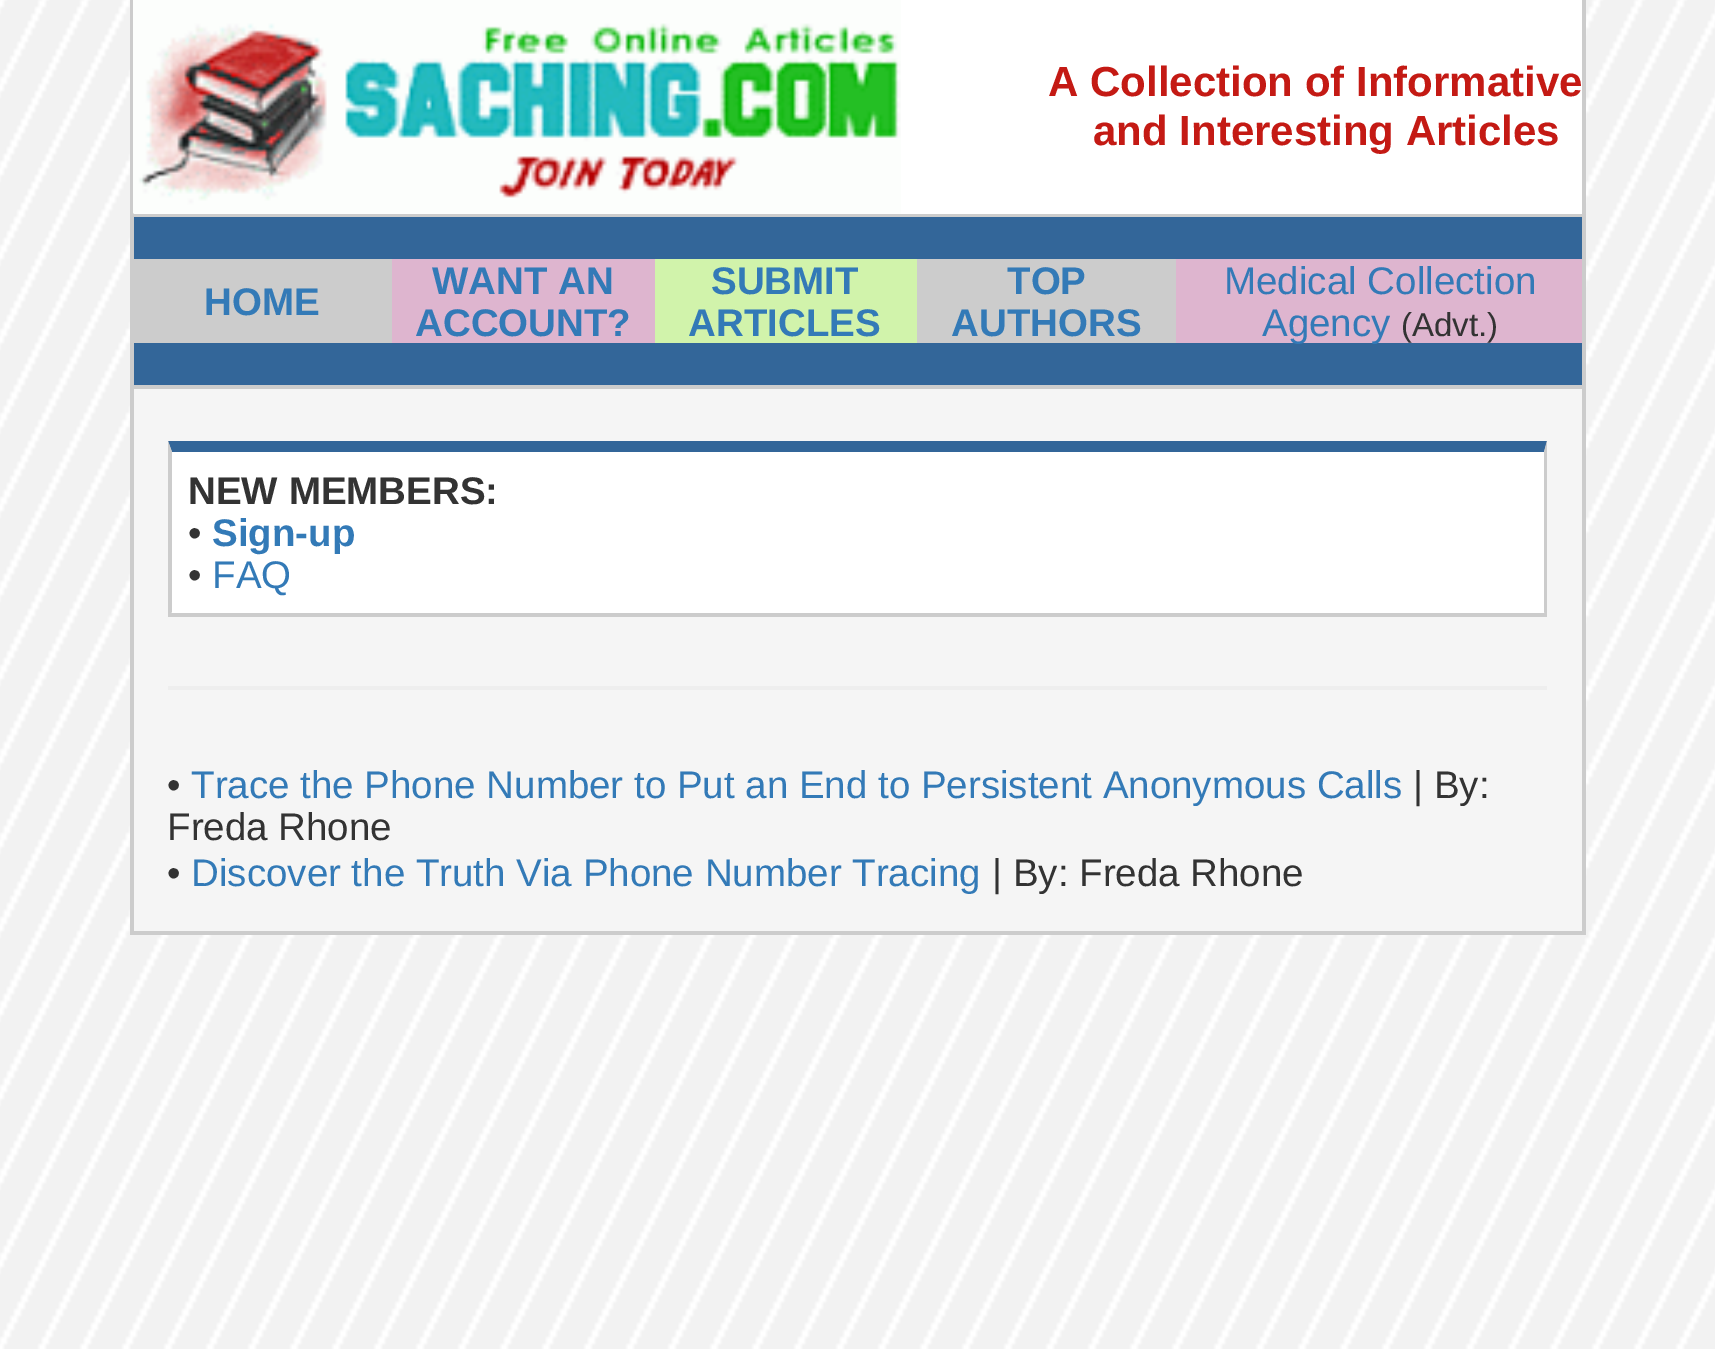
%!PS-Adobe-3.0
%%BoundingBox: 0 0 1715 1349
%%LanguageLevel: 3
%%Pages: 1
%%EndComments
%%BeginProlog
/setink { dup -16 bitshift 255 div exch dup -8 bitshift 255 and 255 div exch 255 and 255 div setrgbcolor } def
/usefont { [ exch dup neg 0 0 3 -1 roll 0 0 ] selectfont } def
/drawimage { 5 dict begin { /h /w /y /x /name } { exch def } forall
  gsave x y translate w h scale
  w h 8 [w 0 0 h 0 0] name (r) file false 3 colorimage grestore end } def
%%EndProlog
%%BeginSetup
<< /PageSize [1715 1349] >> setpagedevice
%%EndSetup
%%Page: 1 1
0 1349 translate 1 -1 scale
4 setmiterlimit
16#FFFFFF setink
0 0 1715 1349 rectfill
(img1.raw) 0 0 1715 1349 drawimage
[
    [134 0 1448 214 16#FFFFFF]
    [1582 0 4 935 16#CCCCCC]
    [130 214 1456 3 16#CCCCCC]
    [130 0 4 217 16#CCCCCC]
] { aload pop setink rectfill } forall
(img2.raw) 133 0 768 214 drawimage
/LiberationSans-Bold 42 usefont
16#C41A14 setink
1048 96 moveto (A Collection of Informative) show
1093 145 moveto (and Interesting Articles) show
[
    [130 385 1456 4 16#CCCCCC]
    [130 217 4 172 16#CCCCCC]
    [134 217 1448 42 16#336699]
    [134 259 258 84 16#CCCCCC]
] { aload pop setink rectfill } forall
/LiberationSans-Bold 38.5 usefont
16#337AB7 setink
204 315 moveto (HOME) show
16#DEB5CF setink
392 259 263 84 rectfill
16#337AB7 setink
432 294 moveto (WANT AN) show
415 336 moveto (ACCOUNT?) show
16#D1F3AB setink
655 259 262 84 rectfill
16#337AB7 setink
711 294 moveto (SUBMIT) show
688 336 moveto (ARTICLES) show
16#CCCCCC setink
917 259 259 84 rectfill
16#337AB7 setink
1007 294 moveto (TOP) show
951 336 moveto (AUTHORS) show
16#DEB5CF setink
1176 259 406 84 rectfill
/LiberationSans-Regular 38.5 usefont
16#337AB7 setink
1224 294 moveto (Medical Collection) show
16#336699 setink
134 343 1448 42 rectfill
16#337AB7 setink
1262 336 moveto (Agency) show
/LiberationSans-Regular 33 usefont
16#333333 setink
1401 336 moveto (\(Advt.\)) show
[
    [130 931 1456 4 16#CCCCCC]
    [130 389 4 546 16#CCCCCC]
    [134 389 1448 542 16#F5F5F5]
    [172 452 1372 161 16#FFFFFF]
] { aload pop setink rectfill } forall
16#336699 setink
168 441 moveto 1547 441 lineto 1544 452 lineto 172 452 lineto closepath fill
16#CCCCCC setink
1547 441 moveto 1547 616 lineto 1544 612 lineto 1544 452 lineto closepath fill
168 613 1379 4 rectfill
168 616 moveto 168 441 lineto 172 452 lineto 172 612 lineto closepath fill
/LiberationSans-Bold 38.5 usefont
16#333333 setink
188 504 moveto (NEW MEMBERS:) show
/LiberationSans-Regular 38.5 usefont
188 546 moveto (•) show
/LiberationSans-Bold 38.5 usefont
16#337AB7 setink
212 546 moveto (Sign-up) show
/LiberationSans-Regular 38.5 usefont
16#333333 setink
188 588 moveto (•) show
16#337AB7 setink
212 588 moveto (FAQ) show
16#EEEEEE setink
168 686 1379 4 rectfill
16#333333 setink
167 798 moveto (•) show
16#337AB7 setink
191 798 moveto (Trace the Phone Number to Put an End to Persistent Anonymous Calls) show
16#333333 setink
[
    [(| By:) 1413 798]
    [(Freda Rhone) 167 840]
    [(•) 167 886]
] { aload pop moveto show } forall
16#337AB7 setink
191 886 moveto (Discover the Truth Via Phone Number Tracing) show
16#333333 setink
992 886 moveto (| By: Freda Rhone) show
showpage
%%EOF
